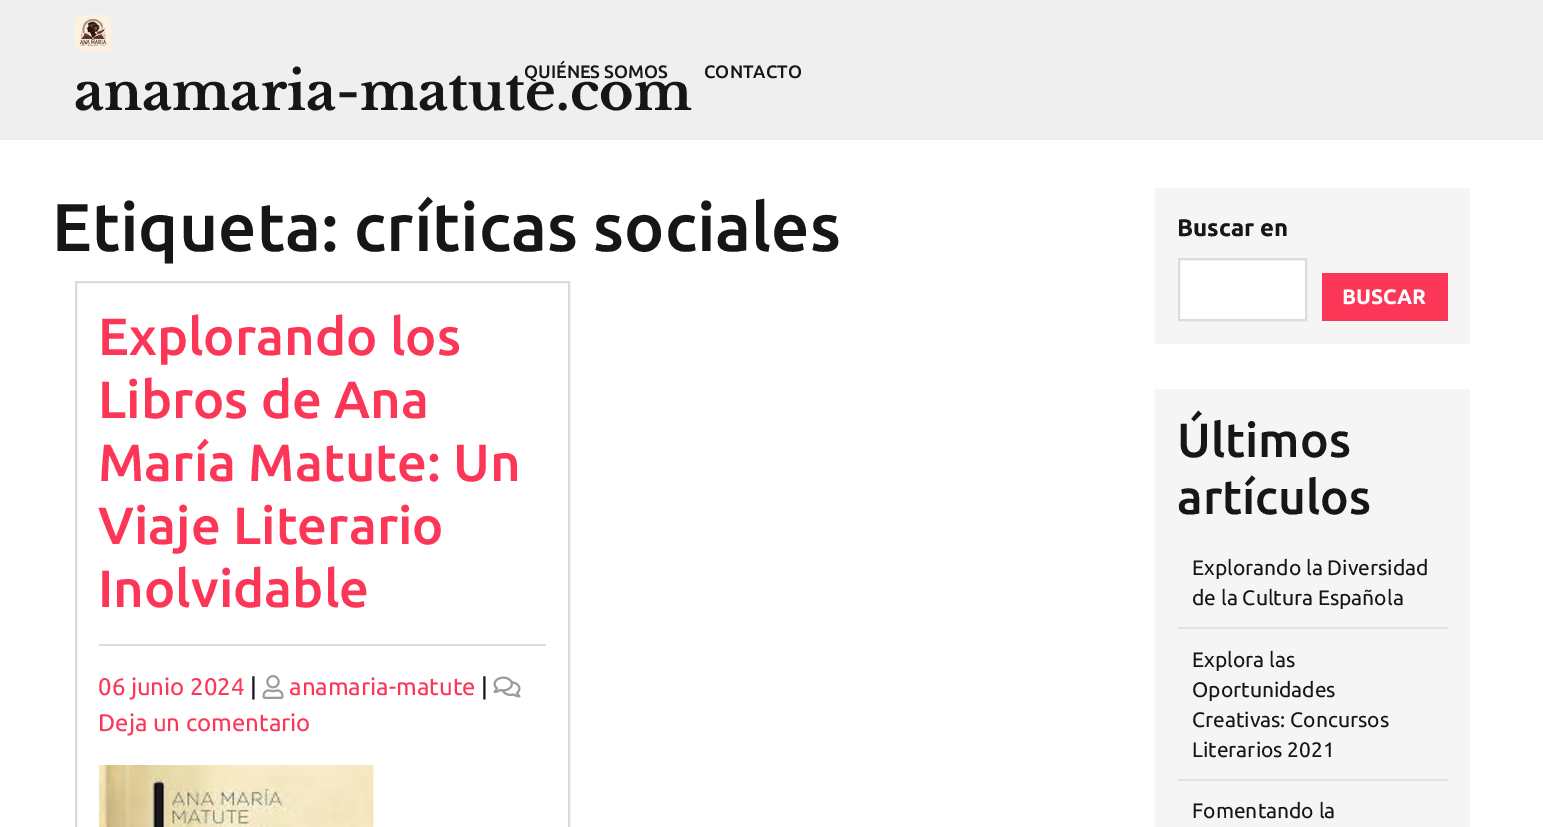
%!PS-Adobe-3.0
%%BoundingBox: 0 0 1543 827
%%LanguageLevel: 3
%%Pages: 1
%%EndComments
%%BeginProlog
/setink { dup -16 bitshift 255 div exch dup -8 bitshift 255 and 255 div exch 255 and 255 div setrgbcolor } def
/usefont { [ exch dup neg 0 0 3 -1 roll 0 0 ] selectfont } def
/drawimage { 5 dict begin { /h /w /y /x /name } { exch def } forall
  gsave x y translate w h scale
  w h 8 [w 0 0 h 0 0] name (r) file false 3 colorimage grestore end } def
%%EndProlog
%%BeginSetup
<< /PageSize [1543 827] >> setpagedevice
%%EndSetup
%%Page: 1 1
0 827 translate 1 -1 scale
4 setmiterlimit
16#FFFFFF setink
0 0 1543 827 rectfill
16#EFEFEF setink
0 0 1543 140 rectfill
/LibreBaskerville-Bold 52.5 usefont
16#161616 setink
74 110 moveto (anamaria-matute.com) show
/Ubuntu-Medium 18 usefont
524 78 moveto (QUIÉNES SOMOS) show
704 78 moveto (CONTACTO) show
(img1.raw) 75 15 36 36 drawimage
/Ubuntu-Medium 67.5 usefont
52 251 moveto (Etiqueta: críticas sociales) show
16#DCDCDC setink
2 setlinewidth
76 282 493 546 rectstroke
/Ubuntu-Medium 52.5 usefont
16#FC3656 setink
[
    [(Explorando los) 98 355]
    [(Libros de Ana) 98 418]
    [(María Matute: Un) 98 481]
    [(Viaje Literario) 98 544]
    [(Inolvidable) 98 607]
] { aload pop moveto show } forall
16#DCDCDC setink
99 644 447 2 rectfill
/Ubuntu-Regular 24 usefont
16#FC3656 setink
98 695 moveto (06 junio 2024) show
16#161616 setink
250 695 moveto (|) show
(img2.raw) 262 675 22 24 drawimage
16#FC3656 setink
289 695 moveto (anamaria-matute) show
16#161616 setink
481 695 moveto (|) show
(img3.raw) 493 676 28 22 drawimage
16#FC3656 setink
98 731 moveto (Deja un comentario) show
(img4.raw) 99 765 275 62 drawimage
16#F5F5F5 setink
1155 188 315 156 rectfill
/Ubuntu-Bold 24 usefont
16#161616 setink
1177 236 moveto (Buscar en) show
16#FFFFFF setink
1179 259 moveto 1306 259 lineto 1306 320 lineto 1179 320 lineto closepath gsave fill grestore
16#DCDCDC setink
stroke
16#FC3656 setink
1322 273 126 48 rectfill
/Ubuntu-Bold 21 usefont
16#FFFFFF setink
1342 304 moveto (BUSCAR) show
16#F5F5F5 setink
1155 389 315 438 rectfill
/Ubuntu-Medium 48 usefont
16#161616 setink
1177 457 moveto (Últimos) show
1177 514 moveto (artículos) show
16#E1E1E1 setink
1178 627 270 2 rectfill
/Ubuntu-Regular 21 usefont
16#161616 setink
1192 575 moveto (Explorando la Diversidad) show
1192 605 moveto (de la Cultura Española) show
16#E1E1E1 setink
1178 779 270 2 rectfill
16#161616 setink
[
    [(Explora las) 1192 667]
    [(Oportunidades) 1192 697]
    [(Creativas: Concursos) 1192 727]
    [(Literarios 2021) 1192 757]
    [(Fomentando la) 1192 818]
] { aload pop moveto show } forall
showpage
%%EOF
